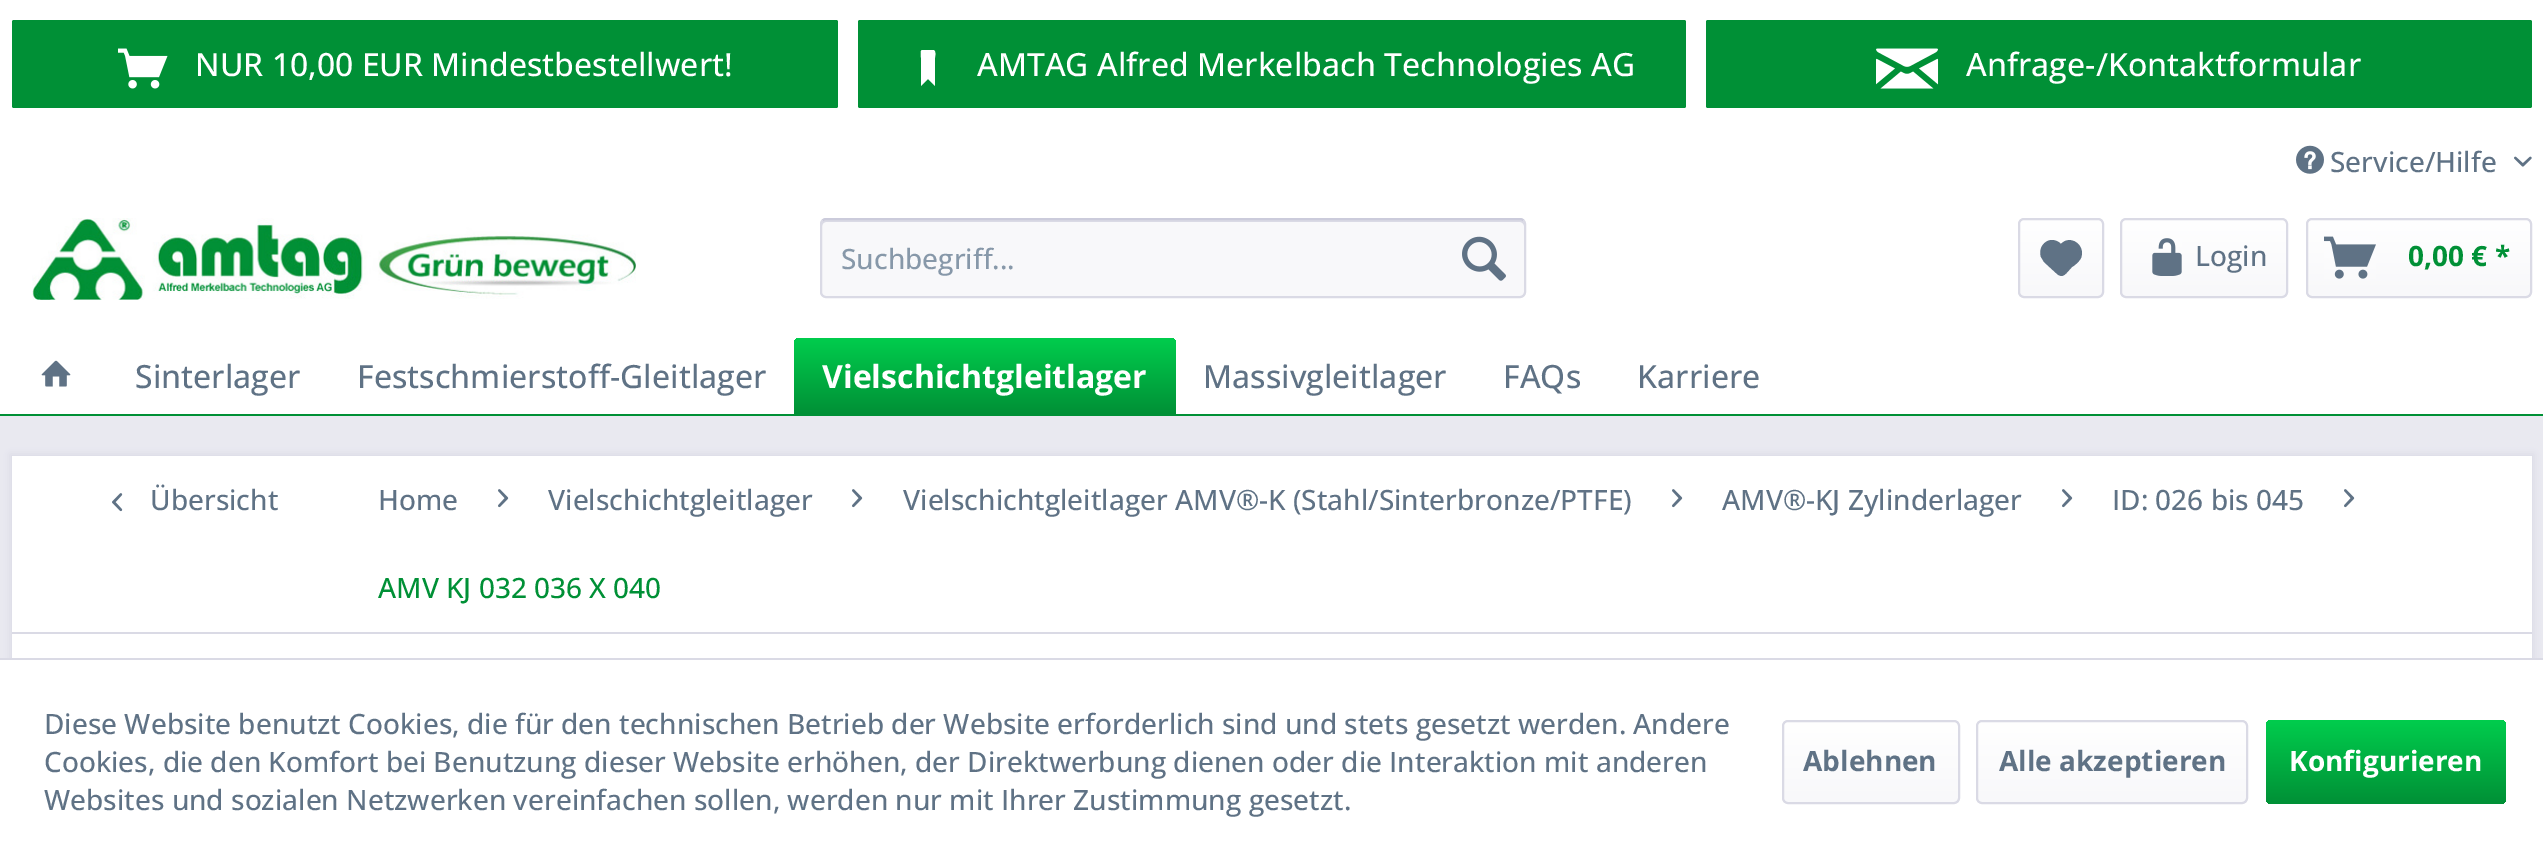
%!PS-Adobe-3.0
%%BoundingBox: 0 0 2543 862
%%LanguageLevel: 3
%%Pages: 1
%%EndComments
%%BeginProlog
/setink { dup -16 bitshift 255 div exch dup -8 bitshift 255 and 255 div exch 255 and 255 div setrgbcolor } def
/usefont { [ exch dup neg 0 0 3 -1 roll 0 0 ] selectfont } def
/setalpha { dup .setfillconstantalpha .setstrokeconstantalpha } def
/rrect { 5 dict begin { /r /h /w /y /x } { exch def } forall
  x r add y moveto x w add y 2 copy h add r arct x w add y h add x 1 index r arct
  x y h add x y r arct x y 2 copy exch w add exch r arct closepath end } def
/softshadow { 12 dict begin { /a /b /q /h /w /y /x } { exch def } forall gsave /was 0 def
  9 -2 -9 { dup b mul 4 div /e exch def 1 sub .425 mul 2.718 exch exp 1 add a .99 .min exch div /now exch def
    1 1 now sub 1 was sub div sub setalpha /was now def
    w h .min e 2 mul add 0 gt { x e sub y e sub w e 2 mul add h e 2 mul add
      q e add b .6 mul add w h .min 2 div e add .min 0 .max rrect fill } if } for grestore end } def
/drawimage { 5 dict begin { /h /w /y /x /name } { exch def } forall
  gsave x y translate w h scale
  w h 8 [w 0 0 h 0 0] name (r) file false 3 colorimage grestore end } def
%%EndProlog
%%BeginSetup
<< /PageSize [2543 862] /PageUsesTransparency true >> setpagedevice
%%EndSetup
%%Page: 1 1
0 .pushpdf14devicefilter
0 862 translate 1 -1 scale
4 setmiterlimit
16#E9E9F0 setink
0 0 2543 862 rectfill
16#FFFFFF setink
0 0 2543 414 rectfill
16#009036 setink
12 20 826 88 2 rrect fill
(img1.raw) 118 48 50 41 drawimage
/OpenSans-Medium 32 usefont
16#FFFFFF setink
195 76 moveto (NUR 10,00 EUR Mindestbestellwert!) show
16#009036 setink
858 20 828 88 2 rrect fill
16#FFFFFF setink
933 50 moveto 922 50 lineto 920 50.5 921 56 921 57.5 curveto 921 86 lineto 928 79 lineto 935 86 lineto 935 57.5 lineto 935 57 936.5 50 933 50 curveto closepath fill
977 76 moveto (AMTAG Alfred Merkelbach Technologies AG) show
16#009036 setink
1706 20 826 88 2 rrect fill
(img2.raw) 1876 48 63 41 drawimage
16#FFFFFF setink
1966 76 moveto (Anfrage-/Kontaktformular) show
(img3.raw) 2296 145 28 29 drawimage
/OpenSans-Medium 28 usefont
16#5F7285 setink
2330 172 moveto (Service/Hilfe) show
(img4.raw) 2514 156 18 11 drawimage
(img5.raw) 32 218 604 82 drawimage
16#F8F8FA setink
820 218 706 80 6 rrect fill
16#DADAE5 setink
826 222 moveto 1520 222 lineto 1522 222 1524 224 1524 226 curveto 1524 223 1524 220 1520 220 curveto 826 220 lineto 822 220 822 223 822 226 curveto 822 224 824 222 826 222 curveto closepath fill
16#CBCBDB setink
2 setlinewidth
822.5 220.5 moveto 823.5 219.5 824.5 219 826 219 curveto 1520 219 lineto 1521.5 219 1522.5 219.5 1523.5 220.5 curveto stroke
16#DADAE5 setink
1523.5 220.5 moveto 1524.5 221.5 1525 222.5 1525 224 curveto 1525 292 lineto 1525 293.5 1524.5 294.5 1523.5 295.5 curveto 1522.5 296.5 1521.5 297 1520 297 curveto 826 297 lineto 824.5 297 823.5 296.5 822.5 295.5 curveto 821.5 294.5 821 293.5 821 292 curveto 821 224 lineto 821 222.5 821.5 221.5 822.5 220.5 curveto stroke
16#8798A9 setink
841 269 moveto (Suchbegriff...) show
(img6.raw) 1462 236 44 45 drawimage
gsave 2020 220 82 76 4 rrect clip newpath
<< /ShadingType 2 /ColorSpace /DeviceRGB /Coords [2061 220 2061 296] /Extend [true true] /Function << /FunctionType 2 /Domain [0 1] /C0 [1 1 1] /C1 [0.973 0.973 0.98] /N 1 >> >> shfill grestore
16#DADAE5 setink
2019 219 84 78 5 rrect stroke
16#5F7285 setink
2052 240 moveto 2044 240 2038 249 2041 257 curveto 2044 262 lineto 2056 273 lineto 2063 280 2066 273 2072 267 curveto 2075 265 2079 262 2081 258 curveto 2086 245 2070 234 2061 244 curveto 2059 242 2056 240 2052 240 curveto closepath fill
gsave 2122 220 164 76 4 rrect clip newpath
<< /ShadingType 2 /ColorSpace /DeviceRGB /Coords [2204 220 2204 296] /Extend [true true] /Function << /FunctionType 2 /Domain [0 1] /C0 [1 1 1] /C1 [0.973 0.973 0.98] /N 1 >> >> shfill grestore
16#DADAE5 setink
2121 219 166 78 5 rrect stroke
(img7.raw) 2152 238 30 38 drawimage
16#5F7285 setink
2195 266 moveto (Login) show
gsave 2308 220 222 76 4 rrect clip newpath
<< /ShadingType 2 /ColorSpace /DeviceRGB /Coords [2419 220 2419 296] /Extend [true true] /Function << /FunctionType 2 /Domain [0 1] /C0 [1 1 1] /C1 [0.973 0.973 0.98] /N 1 >> >> shfill grestore
16#DADAE5 setink
2307 219 224 78 5 rrect stroke
(img8.raw) 2324 236 52 43 drawimage
/OpenSans-Bold 28 usefont
16#009036 setink
2408 266 moveto (0,00 € *) show
0 414 2543 2 rectfill
(img9.raw) 41 360 30 27 drawimage
/OpenSans-Medium 32 usefont
16#5F7285 setink
135 388 moveto (Sinterlager) show
357 388 moveto (Festschmierstoff-Gleitlager) show
gsave 800 338 moveto 1170 338 lineto 1173.5 338 1176 340.5 1176 344 curveto 1176 414 lineto 794 414 lineto 794 344 lineto 794 340.5 796.5 338 800 338 curveto closepath clip newpath
<< /ShadingType 2 /ColorSpace /DeviceRGB /Coords [985 338 985 414] /Extend [true true] /Function << /FunctionType 2 /Domain [0 1] /C0 [0 0.804 0.302] /C1 [0 0.565 0.212] /N 1 >> >> shfill grestore
/OpenSans-Bold 32 usefont
16#FFFFFF setink
822 388 moveto (Vielschichtgleitlager) show
/OpenSans-Medium 32 usefont
16#5F7285 setink
[
    [(Massivgleitlager) 1203 388]
    [(FAQs) 1503 388]
    [(Karriere) 1637 388]
] { aload pop moveto show } forall
16#DADAE5 setink
10 454 2524 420 0 4 1 softshadow
16#FFFFFF setink
12 456 2520 202 rectfill
16#DADAE5 setink
12 632 2520 2 rectfill
(img10.raw) 112 493 11 19 drawimage
/OpenSans-Medium 28 usefont
16#5F7285 setink
150 510 moveto (Übersicht) show
378 510 moveto (Home) show
(img11.raw) 498 489 11 19 drawimage
548 510 moveto (Vielschichtgleitlager) show
(img11.raw) 852 489 11 19 drawimage
903 510 moveto (Vielschichtgleitlager AMV®-K \(Stahl/Sinterbronze/PTFE\)) show
(img11.raw) 1672 489 11 19 drawimage
1722 510 moveto (AMV®-KJ Zylinderlager) show
(img11.raw) 2062 489 11 19 drawimage
2112 510 moveto (ID: 026 bis 045) show
(img11.raw) 2344 489 11 19 drawimage
16#009036 setink
378 598 moveto (AMV KJ 032 036 X 040) show
16#FFFFFF setink
0 660 2543 202 rectfill
16#DADAE5 setink
0 658 2543 2 rectfill
16#5F7285 setink
[
    [(Diese Website benutzt Cookies, die für den technischen Betrieb der Website erforderlich sind und stets gesetzt werden. Andere) 44 734]
    [(Cookies, die den Komfort bei Benutzung dieser Website erhöhen, der Direktwerbung dienen oder die Interaktion mit anderen) 44 772]
    [(Websites und sozialen Netzwerken vereinfachen sollen, werden nur mit Ihrer Zustimmung gesetzt.) 44 810]
] { aload pop moveto show } forall
gsave 1784 722 174 80 4 rrect clip newpath
<< /ShadingType 2 /ColorSpace /DeviceRGB /Coords [1871 722 1871 802] /Extend [true true] /Function << /FunctionType 2 /Domain [0 1] /C0 [1 1 1] /C1 [0.973 0.973 0.98] /N 1 >> >> shfill grestore
16#DADAE5 setink
1783 721 176 82 5 rrect stroke
/OpenSans-Bold 28 usefont
16#5F7285 setink
1803 771 moveto (Ablehnen) show
gsave 1978 722 268 80 4 rrect clip newpath
<< /ShadingType 2 /ColorSpace /DeviceRGB /Coords [2112 722 2112 802] /Extend [true true] /Function << /FunctionType 2 /Domain [0 1] /C0 [1 1 1] /C1 [0.973 0.973 0.98] /N 1 >> >> shfill grestore
16#DADAE5 setink
1977 721 270 82 5 rrect stroke
16#5F7285 setink
1999 771 moveto (Alle akzeptieren) show
gsave 2266 720 240 84 6 rrect clip newpath
<< /ShadingType 2 /ColorSpace /DeviceRGB /Coords [2386 720 2386 804] /Extend [true true] /Function << /FunctionType 2 /Domain [0 1] /C0 [0 0.804 0.302] /C1 [0 0.565 0.212] /N 1 >> >> shfill grestore
16#FFFFFF setink
2289 771 moveto (Konfigurieren) show
.poppdf14devicefilter showpage
%%EOF
